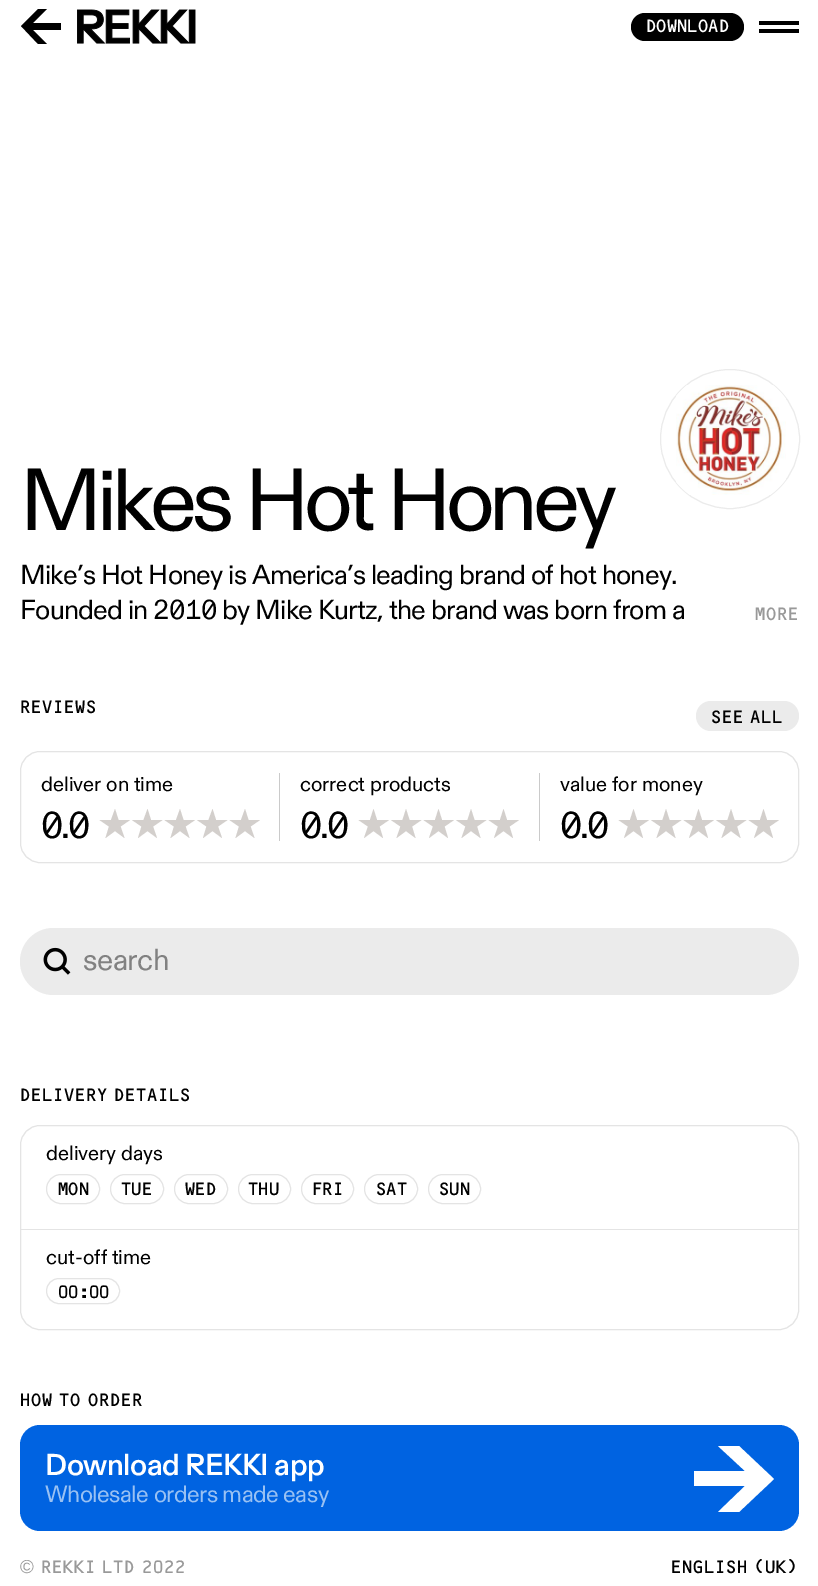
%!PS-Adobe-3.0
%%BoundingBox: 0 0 818 1586
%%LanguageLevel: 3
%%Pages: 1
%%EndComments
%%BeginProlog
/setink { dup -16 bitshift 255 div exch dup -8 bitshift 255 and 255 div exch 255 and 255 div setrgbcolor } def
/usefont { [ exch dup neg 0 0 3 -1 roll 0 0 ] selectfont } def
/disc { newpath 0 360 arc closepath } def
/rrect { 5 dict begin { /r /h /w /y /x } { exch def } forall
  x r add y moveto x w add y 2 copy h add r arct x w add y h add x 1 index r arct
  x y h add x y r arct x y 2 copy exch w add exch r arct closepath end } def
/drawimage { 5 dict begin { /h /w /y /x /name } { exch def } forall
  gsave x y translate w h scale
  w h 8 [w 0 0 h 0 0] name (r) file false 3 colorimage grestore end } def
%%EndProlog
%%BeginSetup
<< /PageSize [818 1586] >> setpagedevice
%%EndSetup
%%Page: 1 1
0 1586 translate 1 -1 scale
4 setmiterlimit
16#FFFFFF setink
0 0 818 1586 rectfill
16#000000 setink
38 44 moveto 47 44 lineto 33 30 lineto 61 30 lineto 61 23 lineto 33 23 lineto 47 9 lineto 38 9 lineto 21 26 lineto closepath fill
(img1.raw) 77 9 119 35 drawimage
631 13 113 28 14 rrect fill
/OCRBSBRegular-Regular 18.75 usefont
16#FFFFFF setink
646 32 moveto (DOWNLOAD) show
16#000000 setink
759 21 40 4 rectfill
759 29 40 4 rectfill
16#EBEBEB setink
730 439 69.5 disc stroke
(img2.raw) 676 385 110 110 drawimage
/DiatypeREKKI-Regular 80 usefont
16#000000 setink
20 530 moveto -5 0 (Mikes Hot Honey) ashow
/DiatypeREKKI-Regular 25 usefont
20 584 moveto -0.75 0 (Mike’s Hot Honey is America’s leading brand of hot honey.) ashow
20 619 moveto -0.75 0 (Founded in 2010 by Mike Kurtz, the brand was born from a) ashow
/OCRBSBRegular-Regular 18.75 usefont
16#999999 setink
755 620 moveto 0.6 0 (MORE) ashow
16#000000 setink
20 713 moveto 0.6 0 (REVIEWS) ashow
16#EBEBEB setink
696 701 103 30 15 rrect fill
16#000000 setink
711 723 moveto 0.6 0 (SEE ALL) ashow
16#E4E4E4 setink
20.5 751.5 778 111 19.5 rrect stroke
/DiatypeREKKI-Regular 18.75 usefont
16#000000 setink
41 791 moveto (deliver on time) show
/DiatypeREKKI-Regular 34 usefont
41 838 moveto -2 0 (0.0) ashow
16#D3CFCC setink
115 809 moveto 118.5 820 lineto 130 820 lineto 120.5 826.5 lineto 124.5 838 lineto 115 831 lineto 105.5 838 lineto 109 826.5 lineto 99.5 820 lineto 111 820 lineto closepath fill
147.5 809 moveto 151 820 lineto 162.5 820 lineto 153 826.5 lineto 157 838 lineto 147.5 831 lineto 138 838 lineto 141.5 826.5 lineto 132 820 lineto 143.5 820 lineto closepath 180 809 moveto 183.5 820 lineto 195 820 lineto 185.5 826.5 lineto 189.5 838 lineto 180 831 lineto 170.5 838 lineto 174 826.5 lineto 164.5 820 lineto 176 820 lineto closepath fill
212.5 809 moveto 216 820 lineto 227.5 820 lineto 218 826.5 lineto 222 838 lineto 212.5 831 lineto 203 838 lineto 206.5 826.5 lineto 197 820 lineto 208.5 820 lineto closepath 245 809 moveto 248.5 820 lineto 260 820 lineto 250.5 826.5 lineto 254.5 838 lineto 245 831 lineto 235.5 838 lineto 239 826.5 lineto 229.5 820 lineto 241 820 lineto closepath fill
16#CACACA setink
279 773 1 68 rectfill
/DiatypeREKKI-Regular 18.75 usefont
16#000000 setink
300 791 moveto (correct products) show
/DiatypeREKKI-Regular 34 usefont
300 838 moveto -2 0 (0.0) ashow
16#D3CFCC setink
373.5 809 moveto 377 820 lineto 389 820 lineto 379.5 826.5 lineto 383 838 lineto 373.5 831 lineto 364 838 lineto 368 826.5 lineto 358.5 820 lineto 370 820 lineto closepath fill
406 809 moveto 409.5 820 lineto 421.5 820 lineto 412 826.5 lineto 415.5 838 lineto 406 831 lineto 396.5 838 lineto 400.5 826.5 lineto 391 820 lineto 402.5 820 lineto closepath 438.5 809 moveto 442 820 lineto 454 820 lineto 444.5 826.5 lineto 448 838 lineto 438.5 831 lineto 429 838 lineto 433 826.5 lineto 423.5 820 lineto 435 820 lineto closepath fill
471 809 moveto 474.5 820 lineto 486.5 820 lineto 477 826.5 lineto 480.5 838 lineto 471 831 lineto 461.5 838 lineto 465.5 826.5 lineto 456 820 lineto 467.5 820 lineto closepath 503.5 809 moveto 507 820 lineto 519 820 lineto 509.5 826.5 lineto 513 838 lineto 503.5 831 lineto 494 838 lineto 498 826.5 lineto 488.5 820 lineto 500 820 lineto closepath fill
16#CACACA setink
539 773 1 68 rectfill
/DiatypeREKKI-Regular 18.75 usefont
16#000000 setink
560 791 moveto (value for money) show
/DiatypeREKKI-Regular 34 usefont
560 838 moveto -2 0 (0.0) ashow
16#D3CFCC setink
633.5 809 moveto 637 820 lineto 649 820 lineto 639.5 826.5 lineto 643 838 lineto 633.5 831 lineto 624 838 lineto 628 826.5 lineto 618.5 820 lineto 630 820 lineto closepath fill
666 809 moveto 669.5 820 lineto 681.5 820 lineto 672 826.5 lineto 675.5 838 lineto 666 831 lineto 656.5 838 lineto 660.5 826.5 lineto 651 820 lineto 662.5 820 lineto closepath 698.5 809 moveto 702 820 lineto 714 820 lineto 704.5 826.5 lineto 708 838 lineto 698.5 831 lineto 689 838 lineto 693 826.5 lineto 683.5 820 lineto 695 820 lineto closepath fill
731 809 moveto 734.5 820 lineto 746.5 820 lineto 737 826.5 lineto 740.5 838 lineto 731 831 lineto 721.5 838 lineto 725.5 826.5 lineto 716 820 lineto 727.5 820 lineto closepath 763.5 809 moveto 767 820 lineto 779 820 lineto 769.5 826.5 lineto 773 838 lineto 763.5 831 lineto 754 838 lineto 758 826.5 lineto 748.5 820 lineto 760 820 lineto closepath fill
16#EBEBEB setink
20 928 779 67 33.5 rrect fill
(img3.raw) 43 947 28 28 drawimage
/DiatypeREKKI-Regular 27.5 usefont
16#818181 setink
83 970 moveto -0.5 0 (search) ashow
/OCRBSBRegular-Regular 18.75 usefont
16#000000 setink
20 1101 moveto 0.6 0 (DELIVERY DETAILS) ashow
16#E4E4E4 setink
20.5 1125.5 778 204 19.5 rrect stroke
/DiatypeREKKI-Regular 18.75 usefont
16#000000 setink
46 1160 moveto (delivery days) show
16#E4E4E4 setink
21 1229 777 1 rectfill
46.5 1174.5 53 29 14.5 rrect stroke
/OCRBSBRegular-Regular 18.75 usefont
16#000000 setink
58 1195 moveto (MON) show
16#E4E4E4 setink
110.5 1174.5 53 29 14.5 rrect stroke
16#000000 setink
121 1195 moveto (TUE) show
16#E4E4E4 setink
174.5 1174.5 53 29 14.5 rrect stroke
16#000000 setink
185 1195 moveto (WED) show
16#E4E4E4 setink
238.5 1174.5 52 29 14.5 rrect stroke
16#000000 setink
248 1195 moveto (THU) show
16#E4E4E4 setink
301.5 1174.5 52 29 14.5 rrect stroke
16#000000 setink
312 1195 moveto (FRI) show
16#E4E4E4 setink
364.5 1174.5 53 29 14.5 rrect stroke
16#000000 setink
376 1195 moveto (SAT) show
16#E4E4E4 setink
428.5 1174.5 52 29 14.5 rrect stroke
16#000000 setink
439 1195 moveto (SUN) show
/DiatypeREKKI-Regular 18.75 usefont
46 1264 moveto (cut-off time) show
16#E4E4E4 setink
46.5 1278.5 73 25 12.5 rrect stroke
/OCRBSBRegular-Regular 18.75 usefont
16#000000 setink
58 1298 moveto (00:00) show
20 1406 moveto 0.6 0 (HOW TO ORDER) ashow
16#0063E1 setink
20 1425 779 106 20 rrect fill
/DiatypeREKKI-Medium 27.5 usefont
16#FFFFFF setink
45 1475 moveto -0.5 0 (Download REKKI app) ashow
/DiatypeREKKI-Regular 21.5 usefont
16#99C1F3 setink
45 1502 moveto -0.5 0 (Wholesale orders made easy) ashow
16#FFFFFF setink
739 1446 moveto 718 1446 lineto 745 1471 lineto 694 1471 lineto 694 1486 lineto 745 1486 lineto 718 1512 lineto 739 1512 lineto 774 1479 lineto closepath fill
/LiberationSans-Regular 18.75 usefont
16#999999 setink
20 1573 moveto 0.6 0 (©) ashow
/OCRBSBRegular-Regular 18.75 usefont
41 1573 moveto 0.6 0 (REKKI LTD 2022) ashow
16#000000 setink
671 1573 moveto 0.6 0 (ENGLISH \(UK\)) ashow
showpage
%%EOF
